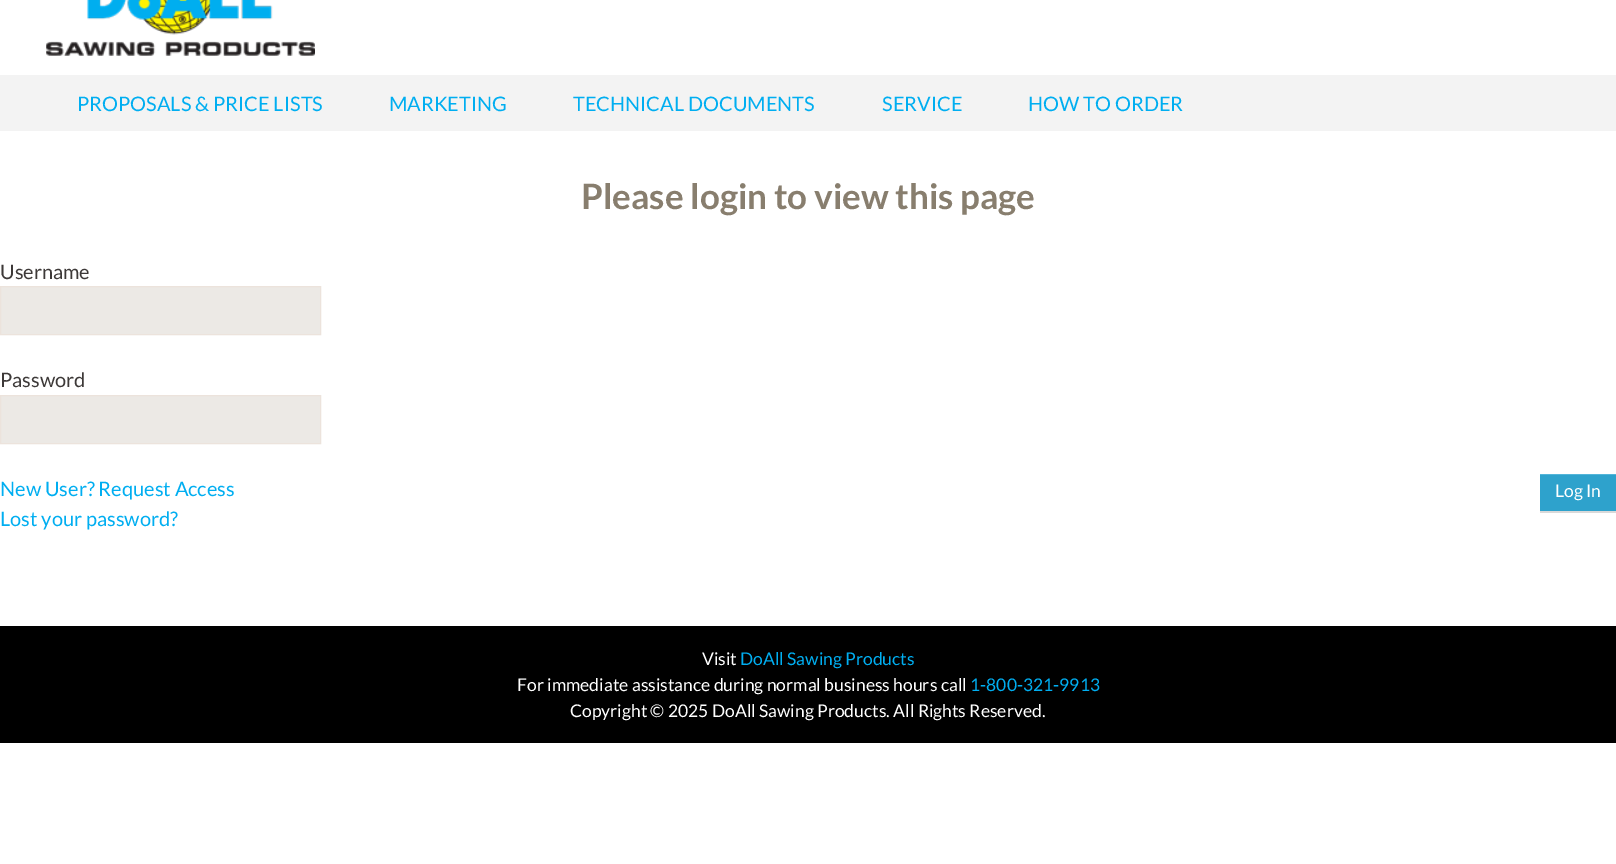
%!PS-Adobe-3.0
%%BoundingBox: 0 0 1616 864
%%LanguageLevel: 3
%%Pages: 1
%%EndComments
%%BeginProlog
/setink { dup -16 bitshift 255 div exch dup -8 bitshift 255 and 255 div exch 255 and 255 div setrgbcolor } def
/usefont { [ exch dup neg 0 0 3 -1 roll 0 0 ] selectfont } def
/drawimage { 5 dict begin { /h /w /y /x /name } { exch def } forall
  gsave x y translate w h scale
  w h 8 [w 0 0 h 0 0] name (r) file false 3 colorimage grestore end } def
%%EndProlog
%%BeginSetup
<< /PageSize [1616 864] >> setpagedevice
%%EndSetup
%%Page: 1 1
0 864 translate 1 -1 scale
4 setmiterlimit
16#FFFFFF setink
0 0 1616 864 rectfill
16#F3F3F3 setink
0 75 1616 56 rectfill
(img1.raw) 46 0 269 56 drawimage
/Lato-Regular 20 usefont
16#00AEF1 setink
[
    [(PROPOSALS & PRICE LISTS) 77 111]
    [(MARKETING) 389 111]
    [(TECHNICAL DOCUMENTS) 573 111]
    [(SERVICE) 882 111]
    [(HOW TO ORDER) 1028 111]
] { aload pop moveto show } forall
/Lato-Bold 35 usefont
16#887E6E setink
581 209 moveto (Please login to view this page) show
/Lato-Regular 20 usefont
16#3D3938 setink
0 279 moveto (Username) show
16#ECE9E5 setink
0.5 286.5 moveto 320.5 286.5 lineto 320.5 334.5 lineto 0.5 334.5 lineto closepath gsave fill grestore
16#ECE3DC setink
stroke
16#3D3938 setink
0 387 moveto (Password) show
16#ECE9E5 setink
0.5 395.5 moveto 320.5 395.5 lineto 320.5 443.5 lineto 0.5 443.5 lineto closepath gsave fill grestore
16#ECE3DC setink
stroke
[
    [1540 511 76 2 16#D9D9D9]
    [1540 475 76 36 16#2EA2CC]
    [1540 474 76 1 16#53B5D9]
] { aload pop setink rectfill } forall
/Lato-Regular 17.5 usefont
16#FFFFFF setink
1555 497 moveto (Log In) show
/Lato-Regular 20 usefont
16#00AEF1 setink
0 496 moveto (New User? Request Access) show
0 526 moveto (Lost your password?) show
16#000000 setink
0 626 1616 117 rectfill
/Lato-Regular 17.5 usefont
16#FFFFFF setink
702 665 moveto (Visit) show
16#00AEF1 setink
740 665 moveto (DoAll Sawing Products) show
16#FFFFFF setink
517 691 moveto (For immediate assistance during normal business hours call) show
16#00AEF1 setink
970 691 moveto (1-800-321-9913) show
16#FFFFFF setink
570 717 moveto (Copyright © 2025 DoAll Sawing Products. All Rights Reserved.) show
showpage
%%EOF
